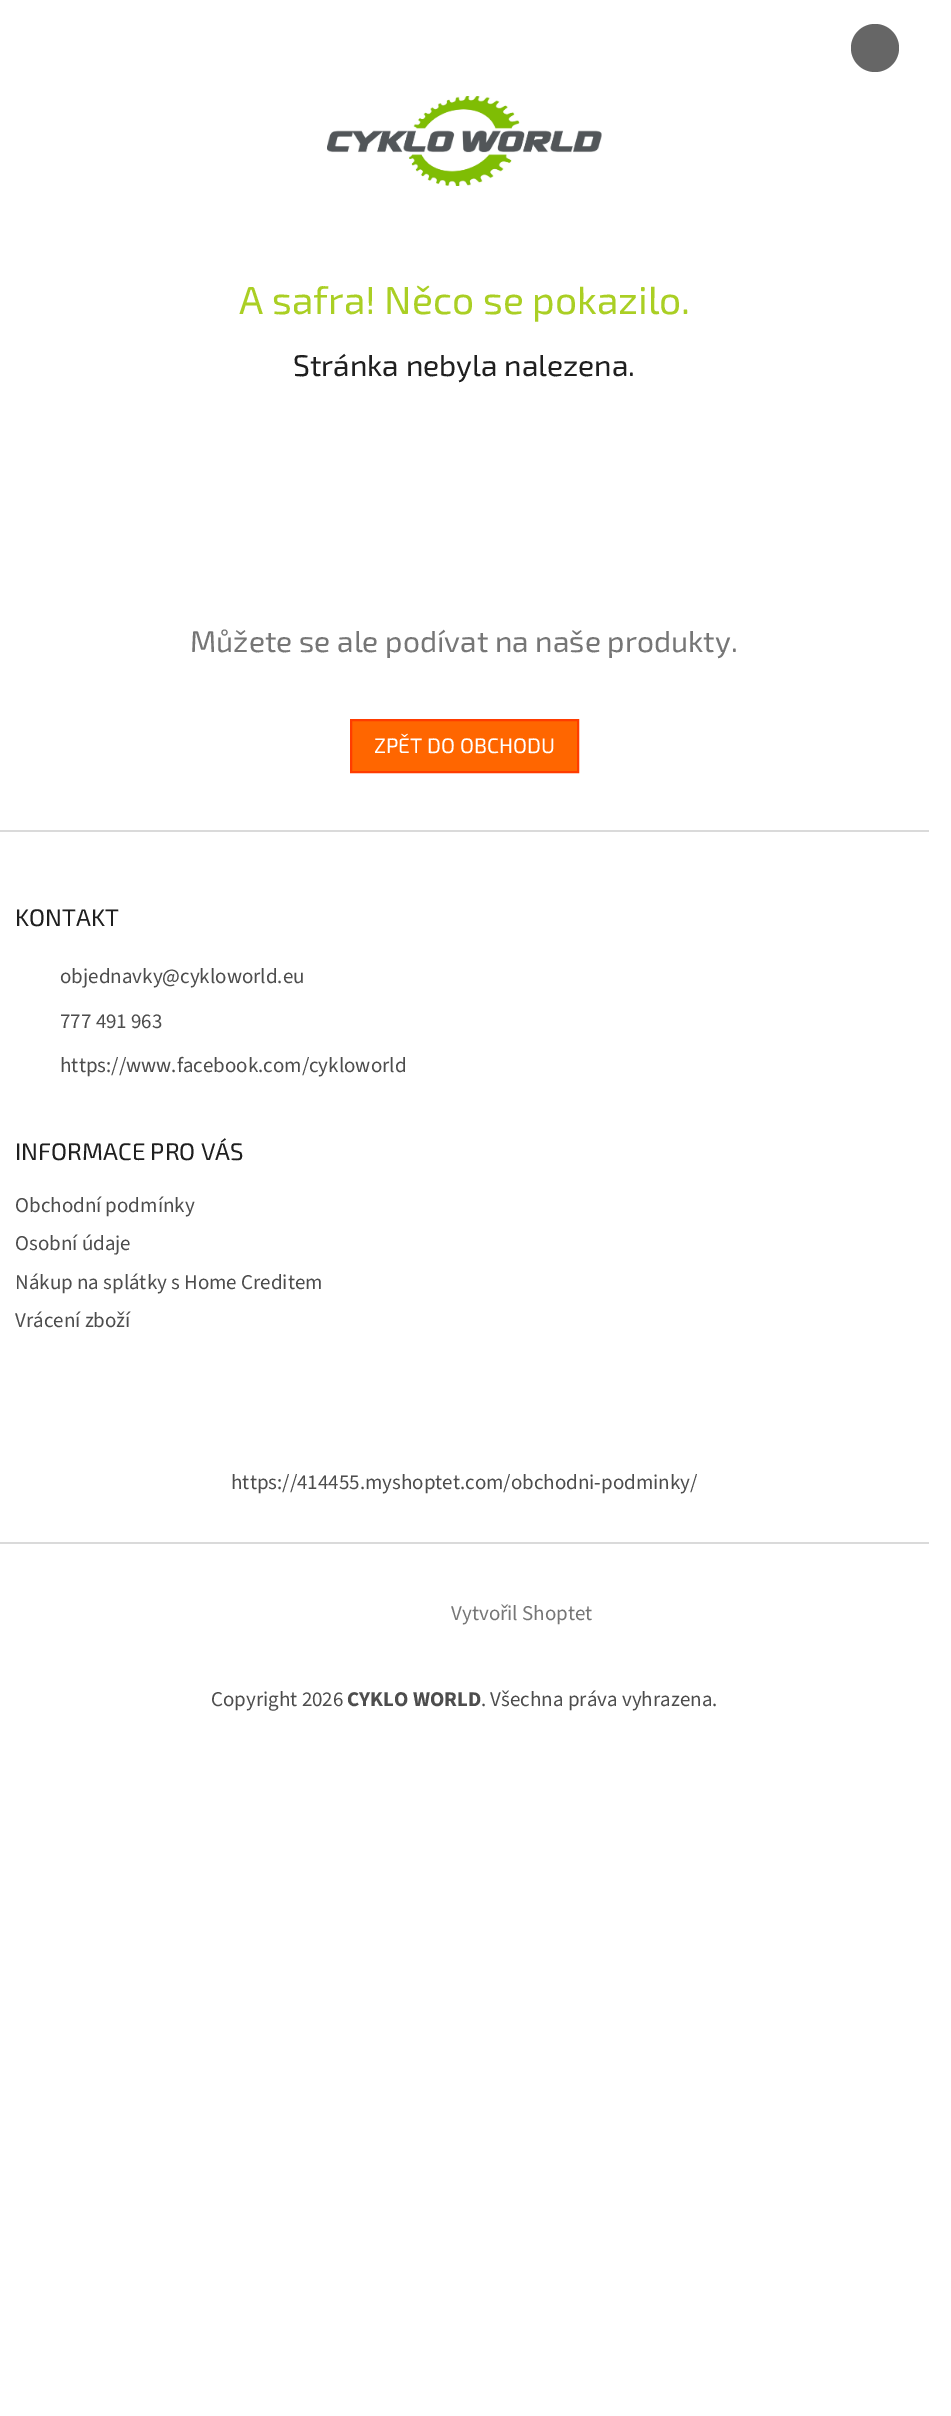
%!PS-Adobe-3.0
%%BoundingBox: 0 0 951 2416
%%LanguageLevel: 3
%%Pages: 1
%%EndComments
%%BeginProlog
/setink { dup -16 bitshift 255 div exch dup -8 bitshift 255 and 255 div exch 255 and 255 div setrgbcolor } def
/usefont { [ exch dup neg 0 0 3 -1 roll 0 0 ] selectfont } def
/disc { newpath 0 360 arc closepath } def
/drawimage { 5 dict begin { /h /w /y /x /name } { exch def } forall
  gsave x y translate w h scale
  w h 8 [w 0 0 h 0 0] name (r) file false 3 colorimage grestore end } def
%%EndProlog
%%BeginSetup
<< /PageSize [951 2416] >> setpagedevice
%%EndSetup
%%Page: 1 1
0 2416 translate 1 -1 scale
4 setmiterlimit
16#FFFFFF setink
0 0 951 2416 rectfill
16#666666 setink
875 48 24 disc fill
(img1.raw) 327 96 275 90 drawimage
/Exo2-Regular 39 usefont
16#AACF24 setink
239 314 moveto (A safra! Něco se pokazilo.) show
/Exo2-Regular 30 usefont
16#1F1F1F setink
293 376 moveto (Stránka nebyla nalezena.) show
16#767676 setink
190 652 moveto (Můžete se ale podívat na naše produkty.) show
16#FF6600 setink
351 720 moveto 578 720 lineto 578 772 lineto 351 772 lineto closepath gsave fill grestore
16#FF3C00 setink
2 setlinewidth
stroke
/Exo2-Regular 21 usefont
16#FFFFFF setink
374 753 moveto (ZPĚT DO OBCHODU) show
16#DADADA setink
0 830 929 2 rectfill
/Exo2-Regular 24 usefont
16#1F1F1F setink
15 926 moveto (KONTAKT) show
/SourceSans3-Regular 21 usefont
16#4D4D4D setink
[
    [(objednavky@cykloworld.eu) 60 983]
    [(777 491 963) 60 1028]
    [(https://www.facebook.com/cykloworld) 60 1072]
] { aload pop moveto show } forall
/Exo2-Regular 24 usefont
16#1F1F1F setink
15 1160 moveto (INFORMACE PRO VÁS) show
/SourceSans3-Regular 21 usefont
16#4D4D4D setink
[
    [(Obchodní podmínky) 15 1212]
    [(Osobní údaje) 15 1250]
    [(Nákup na splátky s Home Creditem) 15 1289]
    [(Vrácení zboží) 15 1327]
    [(https://414455.myshoptet.com/obchodni-podminky/) 231 1489]
] { aload pop moveto show } forall
16#DADADA setink
0 1542 929 2 rectfill
16#767676 setink
451 1620 moveto (Vytvořil Shoptet) show
16#4D4D4D setink
211 1706 moveto (Copyright 2026) show
/SourceSans3-Bold 21 usefont
347 1706 moveto (CYKLO WORLD) show
/SourceSans3-Regular 21 usefont
481 1706 moveto (. Všechna práva vyhrazena.) show
showpage
%%EOF
